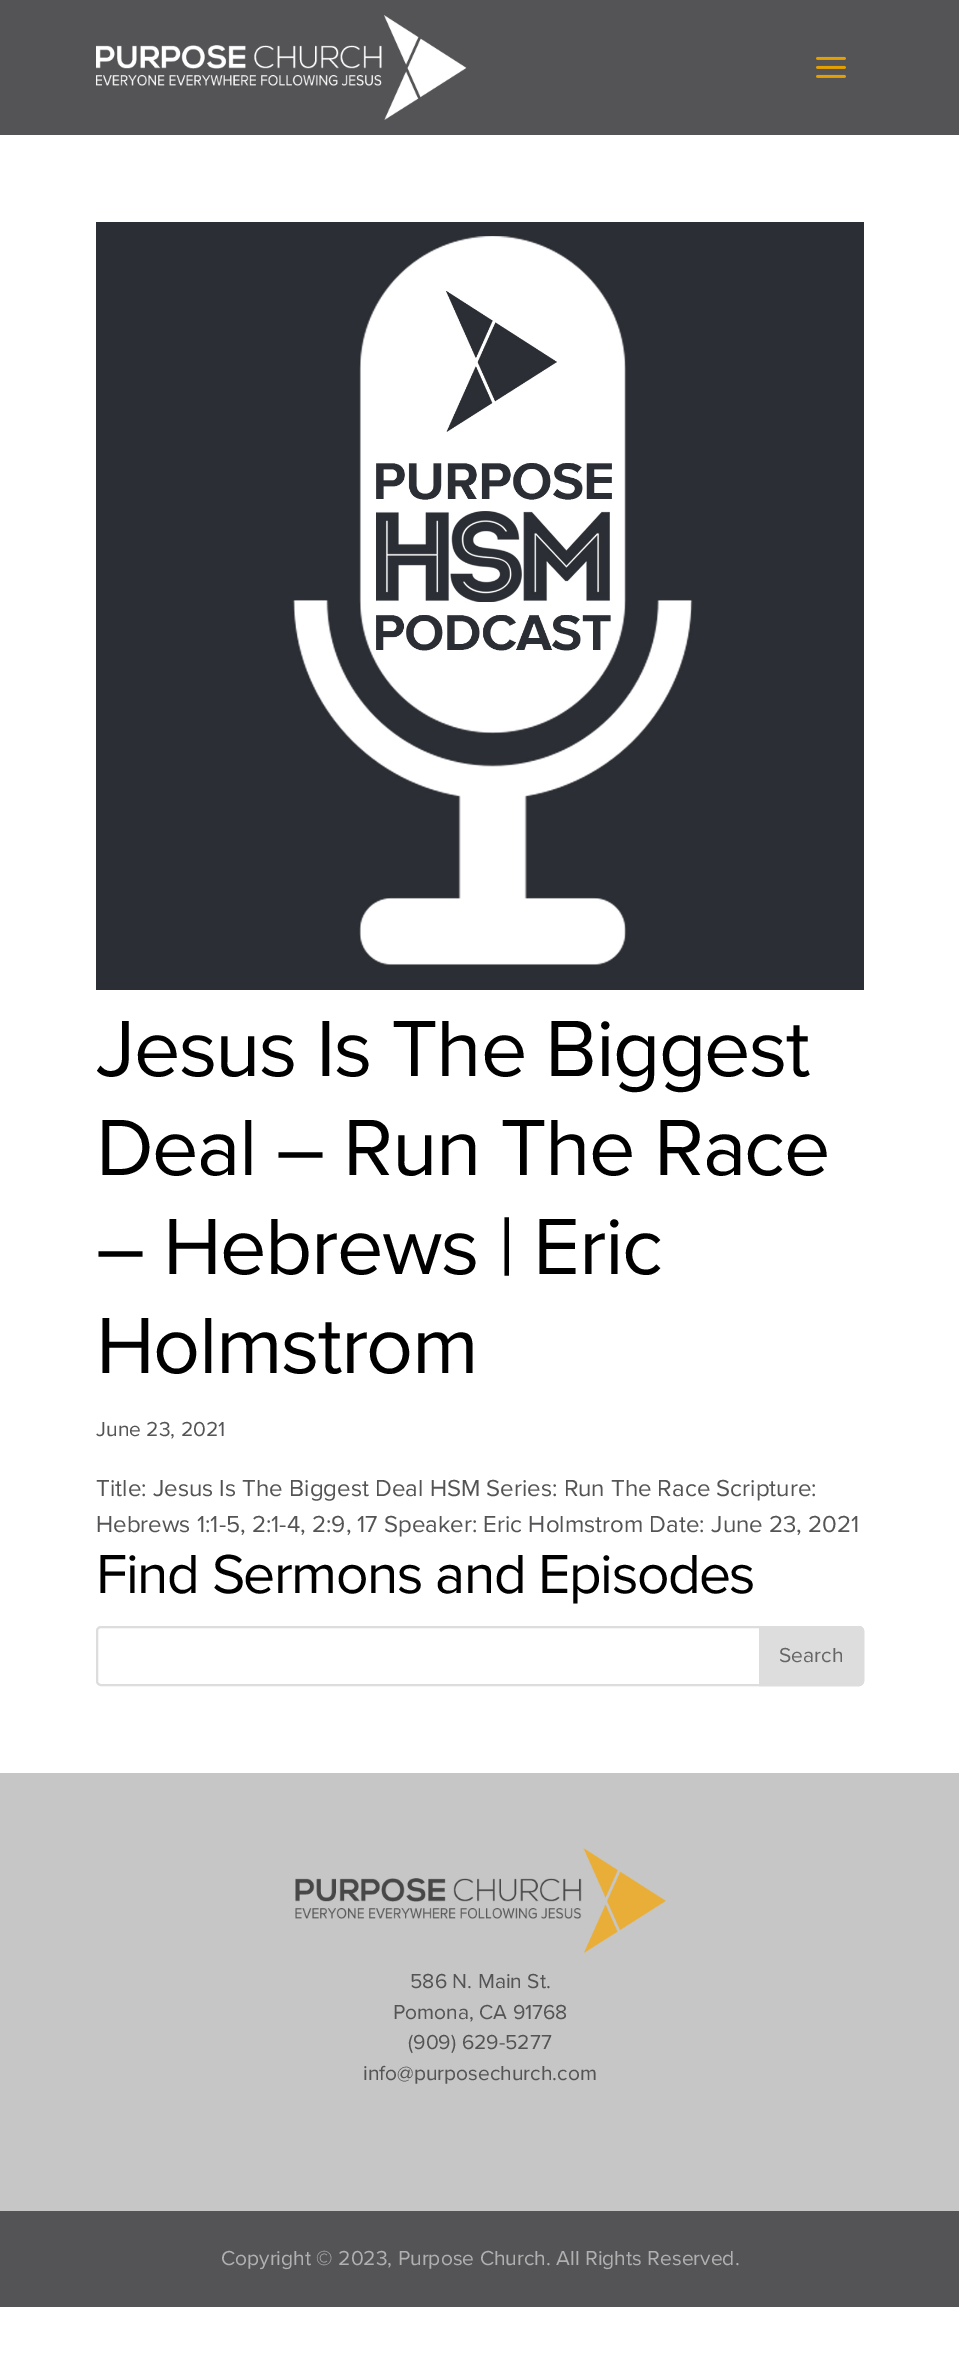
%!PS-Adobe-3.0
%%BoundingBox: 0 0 959 2364
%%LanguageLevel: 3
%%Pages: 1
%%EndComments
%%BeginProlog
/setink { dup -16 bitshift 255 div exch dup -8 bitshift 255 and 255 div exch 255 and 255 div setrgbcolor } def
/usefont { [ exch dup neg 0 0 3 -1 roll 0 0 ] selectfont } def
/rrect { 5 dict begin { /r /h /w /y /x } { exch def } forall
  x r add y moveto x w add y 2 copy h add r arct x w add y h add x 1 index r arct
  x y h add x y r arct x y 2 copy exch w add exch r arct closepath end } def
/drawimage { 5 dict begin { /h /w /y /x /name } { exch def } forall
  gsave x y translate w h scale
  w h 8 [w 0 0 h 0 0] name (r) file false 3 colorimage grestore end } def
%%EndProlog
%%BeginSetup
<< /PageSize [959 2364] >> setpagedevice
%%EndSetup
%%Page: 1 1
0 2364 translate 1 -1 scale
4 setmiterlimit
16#FFFFFF setink
0 0 959 2364 rectfill
16#545456 setink
0 0 959 135 rectfill
(img1.raw) 96 15 371 105 drawimage
(img2.raw) 816 56 30 22 drawimage
(img3.raw) 96 222 768 768 drawimage
/ProximaNova-Regular 82.5 usefont
16#000000 setink
96 1076 moveto -1.5 0 (Jesus Is The Biggest) ashow
96 1175 moveto -1.5 0 (Deal – Run The Race) ashow
96 1274 moveto -1.5 0 (– Hebrews | Eric) ashow
96 1373 moveto -1.5 0 (Holmstrom) ashow
/ProximaNova-Regular 21 usefont
16#545456 setink
96 1436 moveto (June 23, 2021) show
/ProximaNova-Regular 24 usefont
96 1496 moveto (Title: Jesus Is The Biggest Deal HSM Series: Run The Race Scripture:) show
96 1532 moveto (Hebrews 1:1-5, 2:1-4, 2:9, 17 Speaker: Eric Holmstrom Date: June 23, 2021) show
/ProximaNova-Regular 57 usefont
16#000000 setink
96 1593 moveto -1.5 0 (Find Sermons and Episodes) ashow
16#DDDDDD setink
2 setlinewidth
97 1627 766 58 4 rrect stroke
760 1627 moveto 859 1627 lineto 861 1627 863 1629 863 1631 curveto 863 1681 lineto 863 1683 861 1685 859 1685 curveto 760 1685 lineto closepath gsave fill grestore
stroke
/ProximaNova-Regular 21 usefont
16#666666 setink
779 1662 moveto (Search) show
16#C6C6C6 setink
0 1773 959 438 rectfill
(img4.raw) 295 1848 371 105 drawimage
16#545456 setink
[
    [(586 N. Main St.) 410 1988]
    [(Pomona, CA 91768) 393 2019]
    [(\(909\) 629-5277) 408 2049]
    [(info@purposechurch.com) 363 2080]
] { aload pop moveto show } forall
0 2211 959 96 rectfill
16#B0B0B1 setink
221 2265 moveto (Copyright © 2023, Purpose Church. All Rights Reserved.) show
showpage
%%EOF
